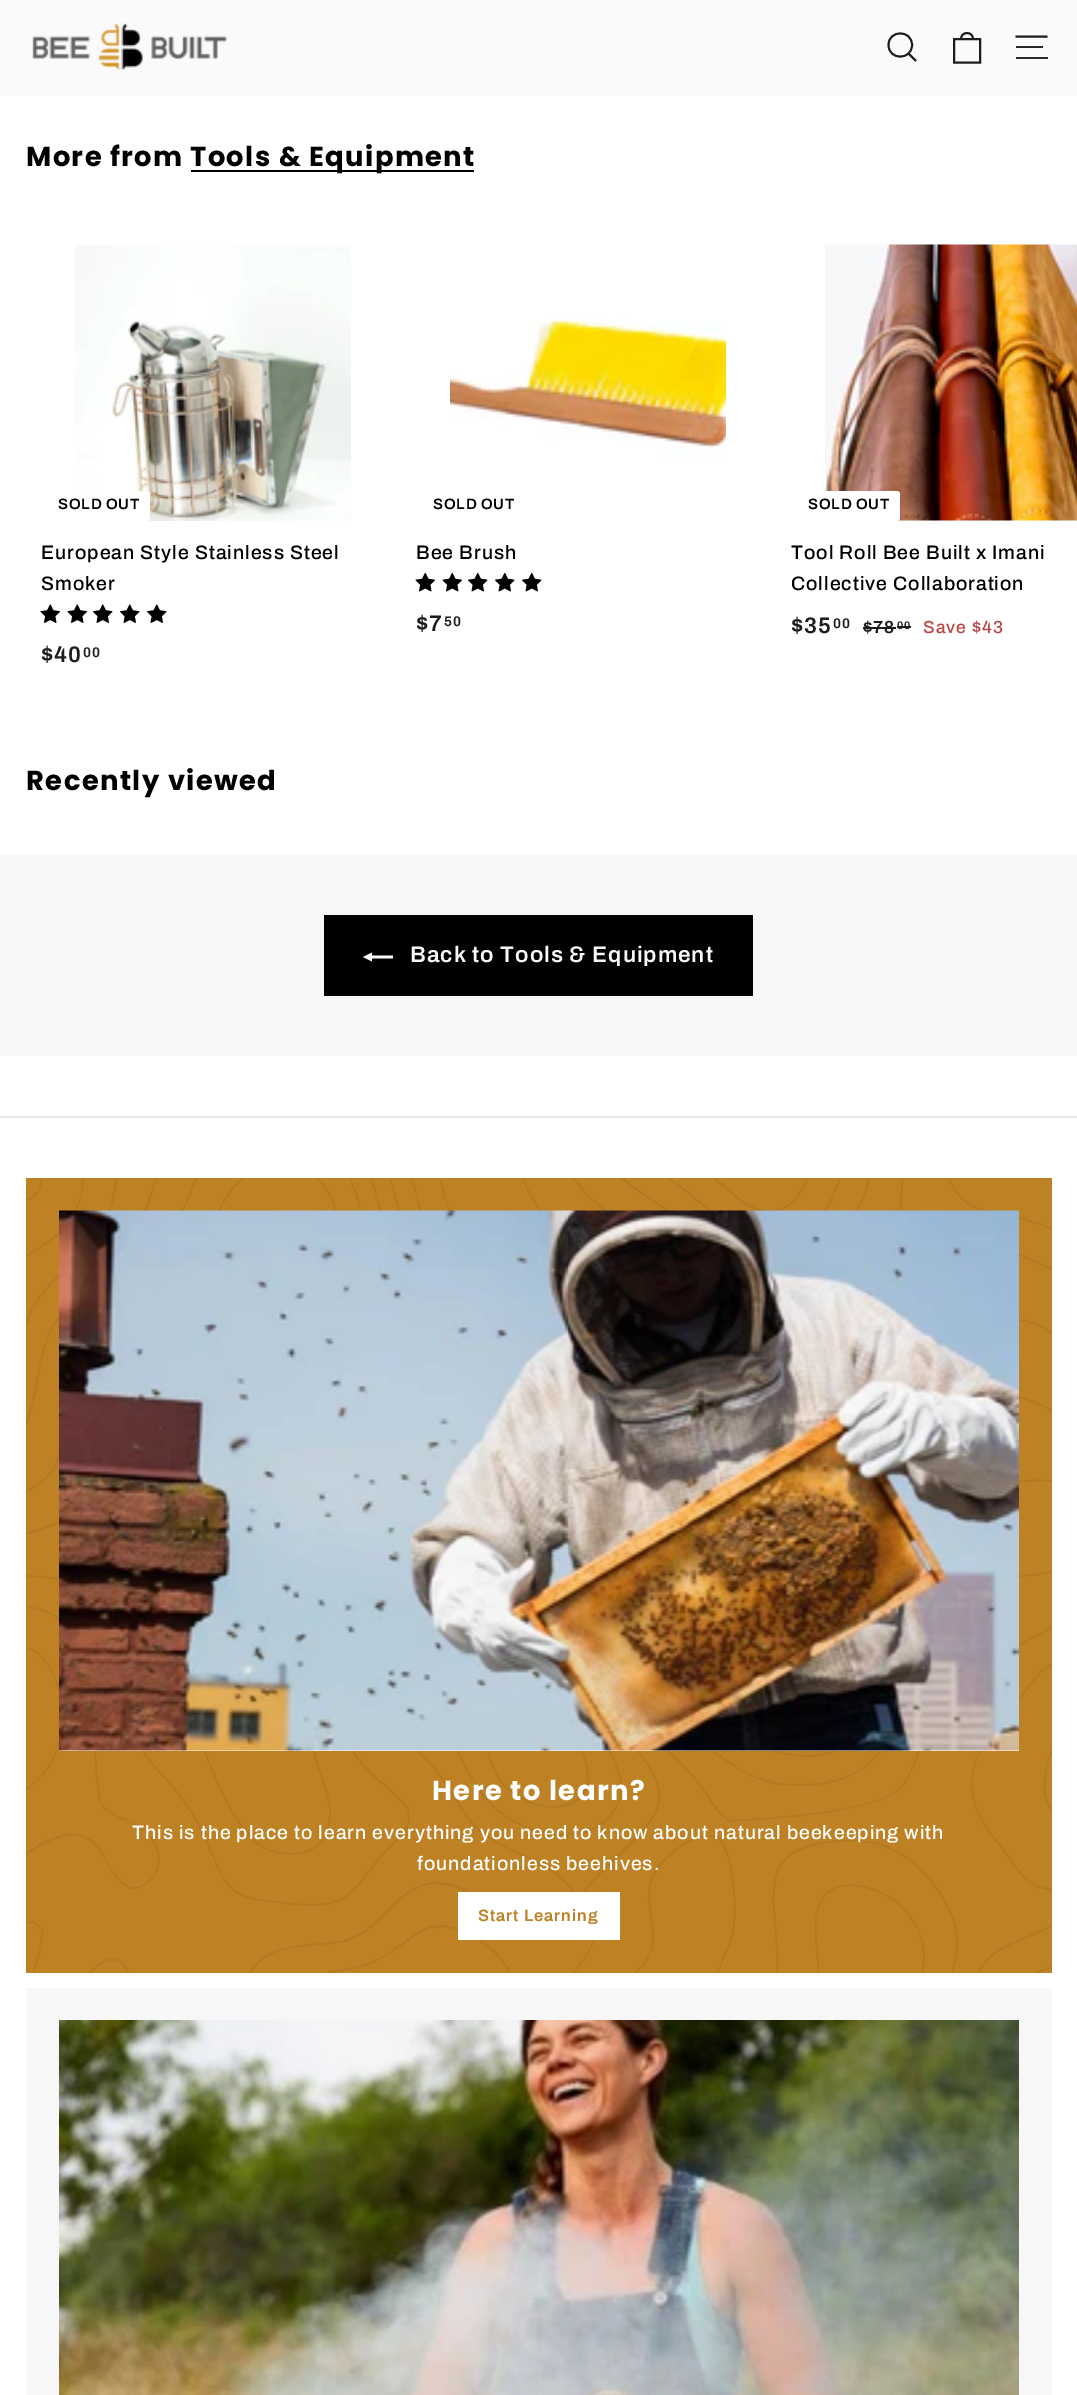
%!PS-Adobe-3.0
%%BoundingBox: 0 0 1077 2395
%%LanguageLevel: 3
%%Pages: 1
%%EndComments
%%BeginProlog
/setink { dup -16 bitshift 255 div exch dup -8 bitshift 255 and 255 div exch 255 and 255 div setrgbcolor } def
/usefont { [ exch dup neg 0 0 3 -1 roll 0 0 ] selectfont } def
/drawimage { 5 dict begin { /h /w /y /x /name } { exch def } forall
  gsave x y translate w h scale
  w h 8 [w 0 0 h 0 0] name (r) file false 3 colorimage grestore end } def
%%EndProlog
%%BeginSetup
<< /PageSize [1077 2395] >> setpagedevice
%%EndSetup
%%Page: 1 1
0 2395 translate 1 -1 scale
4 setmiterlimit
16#FFFFFF setink
0 0 1077 2395 rectfill
[
    [26 1988 1026 407 16#F7F7F7]
    [0 855 1077 201 16#F7F7F7]
    [0 0 1077 96 16#FAFAFA]
] { aload pop setink rectfill } forall
(img1.raw) 32 23 195 48 drawimage
16#1C1D1D setink
1.9 setlinewidth
912 45 moveto 912 60.5 888.5 60.5 888.5 45 curveto 888.5 29.5 912 29.5 912 45 curveto closepath 916 61 moveto 908.5 53.5 lineto stroke
961 39 moveto 961 31 973 31 973 39 curveto 954 39 moveto 980 39 lineto 980 62.5 lineto 954 62.5 lineto closepath stroke
1015.5 36.5 moveto 1047.5 36.5 lineto stroke
16#272828 setink
1016 46 27 2 rectfill
1016 57 32 2 rectfill
/Poppins-Bold 27.4 usefont
16#000000 setink
26 166 moveto 1.4 0 (More from) ashow
191 170 283 2 rectfill
190 166 moveto 1.4 0 (Tools & Equipment) ashow
(img2.raw) 75 245 276 276 drawimage
16#FFFFFF setink
48 491 moveto 147 491 lineto 148.5 491 150 492.5 150 494 curveto 150 518 lineto 150 519.5 148.5 521 147 521 curveto 48 521 lineto closepath fill
/Archivo-SemiBold 15 usefont
16#000000 setink
58 509 moveto 0.75 0 (SOLD OUT) ashow
/Archivo-Medium 19.5 usefont
41 559 moveto 0.98 0 (European Style Stainless Steel) ashow
41 590 moveto 0.98 0 (Smoker) ashow
(img3.raw) 40 604 20 19 drawimage
(img3.raw) 67 604 20 19 drawimage
(img4.raw) 93 604 20 19 drawimage
(img4.raw) 120 604 20 19 drawimage
(img4.raw) 147 604 20 19 drawimage
/Archivo-SemiBold 22.5 usefont
16#1C1D1D setink
41 662 moveto 0.98 0 ($40) ashow
/Archivo-SemiBold 14 usefont
83 657 moveto 0.98 0 (00) ashow
(img5.raw) 450 319 276 138 drawimage
/Archivo-SemiBold 15 usefont
16#000000 setink
433 509 moveto 0.75 0 (SOLD OUT) ashow
/Archivo-Medium 19.5 usefont
416 559 moveto 0.98 0 (Bee Brush) ashow
(img6.raw) 415 572 20 20 drawimage
(img6.raw) 442 572 20 20 drawimage
(img7.raw) 468 572 20 20 drawimage
(img7.raw) 495 572 20 20 drawimage
(img7.raw) 522 572 20 20 drawimage
/Archivo-SemiBold 22.5 usefont
16#1C1D1D setink
416 631 moveto 0.98 0 ($7) ashow
/Archivo-SemiBold 14 usefont
444 626 moveto 0.98 0 (50) ashow
(img8.raw) 825 244 252 277 drawimage
16#FFFFFF setink
798 491 moveto 897 491 lineto 898.5 491 900 492.5 900 494 curveto 900 518 lineto 900 519.5 898.5 521 897 521 curveto 798 521 lineto closepath fill
/Archivo-SemiBold 15 usefont
16#000000 setink
808 509 moveto 0.75 0 (SOLD OUT) ashow
/Archivo-Medium 19.5 usefont
791 559 moveto 0.98 0 (Tool Roll Bee Built x Imani) ashow
791 590 moveto 0.98 0 (Collective Collaboration) ashow
/Archivo-SemiBold 22.5 usefont
16#1C1D1D setink
791 633 moveto 0.98 0 ($35) ashow
/Archivo-SemiBold 14 usefont
833 628 moveto 0.98 0 (00) ashow
/Archivo-SemiBold 17.5 usefont
863 633 moveto 0.98 0 ($78) ashow
863 627 33 2 rectfill
897 626 14 2 rectfill
/Archivo-SemiBold 11 usefont
897 629 moveto 0.98 0 (00) ashow
/Archivo-Medium 17.5 usefont
16#BA4444 setink
923 633 moveto 0.98 0 (Save $43) ashow
/Poppins-Bold 27.4 usefont
16#000000 setink
26 790 moveto 1.4 0 (Recently viewed) ashow
324 915 429 81 rectfill
16#F7F7F7 setink
393 955.5 moveto 393 958.5 lineto 372 958.5 lineto 372 961.5 lineto 363 957 lineto 372 952.5 lineto 372 955.5 lineto closepath fill
/Archivo-SemiBold 22.5 usefont
410 962 moveto 0.98 0 (Back to Tools & Equipment) ashow
16#E8E8E1 setink
0 1116 1077 2 rectfill
16#BE8224 setink
26 1178 1026 795 rectfill
(img9.raw) 26 1178 1026 795 drawimage
16#FFFFFF setink
59 1750 960 1 rectfill
(img10.raw) 59 1210 960 541 drawimage
/Poppins-Bold 27.4 usefont
432 1800 moveto 1.4 0 (Here to learn?) ashow
/Archivo-Medium 19.5 usefont
132 1839 moveto 0.98 0 (This is the place to learn everything you need to know about natural beekeeping with) ashow
417 1870 moveto 0.98 0 (foundationless beehives.) ashow
458 1892 162 48 rectfill
/Archivo-SemiBold 16.5 usefont
16#BE8224 setink
478 1921 moveto 0.98 0 (Start Learning) ashow
(img11.raw) 59 2020 960 375 drawimage
showpage
%%EOF
